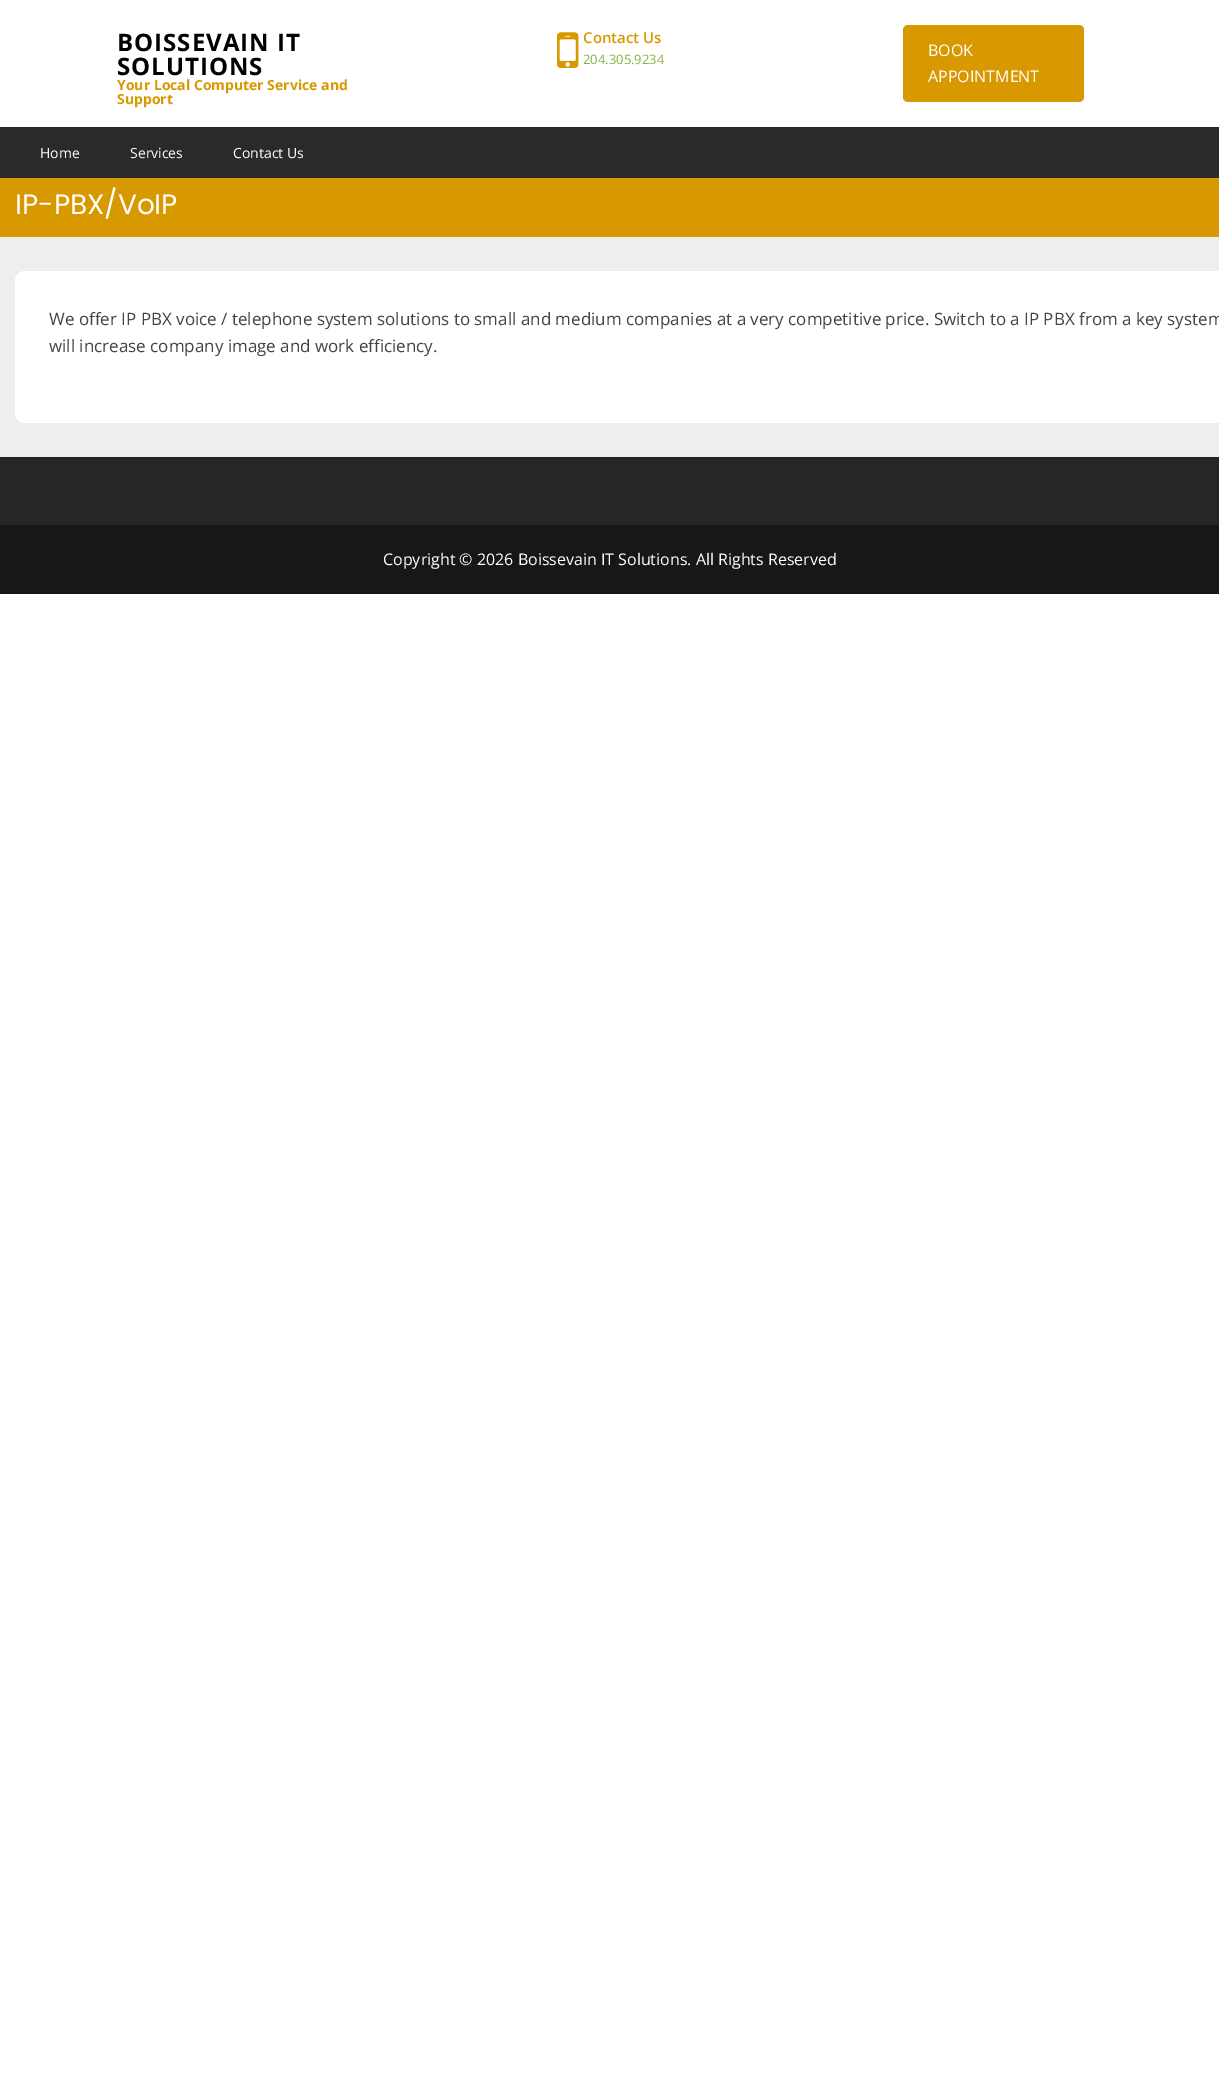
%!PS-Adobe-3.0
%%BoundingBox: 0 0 1219 2099
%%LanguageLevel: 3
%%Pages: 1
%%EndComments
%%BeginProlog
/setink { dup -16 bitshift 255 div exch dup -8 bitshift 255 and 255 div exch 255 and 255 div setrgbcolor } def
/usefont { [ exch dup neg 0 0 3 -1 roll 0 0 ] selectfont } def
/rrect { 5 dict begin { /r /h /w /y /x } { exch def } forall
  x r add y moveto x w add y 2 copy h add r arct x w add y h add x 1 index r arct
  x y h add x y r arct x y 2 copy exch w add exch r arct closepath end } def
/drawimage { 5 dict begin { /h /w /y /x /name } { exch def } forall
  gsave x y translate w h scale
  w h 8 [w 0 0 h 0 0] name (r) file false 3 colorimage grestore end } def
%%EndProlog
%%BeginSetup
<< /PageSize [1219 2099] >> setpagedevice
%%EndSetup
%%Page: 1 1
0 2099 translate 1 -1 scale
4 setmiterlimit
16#FFFFFF setink
0 0 1219 2099 rectfill
/OpenSans-Bold 24 usefont
16#000000 setink
117 51 moveto 1 0 (BOISSEVAIN IT) ashow
117 75 moveto 1 0 (SOLUTIONS) ashow
/OpenSans-Bold 14 usefont
16#D79800 setink
117 90 moveto (Your Local Computer Service and) show
117 104 moveto (Support) show
(img1.raw) 557 32 22 36 drawimage
/OpenSans-SemiBold 15 usefont
583 43 moveto (Contact Us) show
/OpenSans-Regular 13 usefont
16#82B440 setink
583 64 moveto (204.305.9234) show
16#D79800 setink
903 25 181 77 5 rrect fill
/OpenSans-Regular 16 usefont
16#FFFFFF setink
928 56 moveto (BOOK) show
928 82 moveto (APPOINTMENT) show
16#2A2A2A setink
0 127 1219 51 rectfill
/OpenSans-Regular 14 usefont
16#FFFFFF setink
[
    [(Home) 40 158]
    [(Services) 130 158]
    [(Contact Us) 233 158]
] { aload pop moveto show } forall
16#D79800 setink
0 178 1219 59 rectfill
/Poppins-Regular 28 usefont
16#FFFFFF setink
15 214 moveto (IP-PBX/VoIP) show
16#EEEEEE setink
0 237 1219 220 rectfill
16#FFFFFF setink
15 271 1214 152 10 rrect fill
/OpenSans-Regular 17 usefont
16#444444 setink
49 325 moveto (We offer IP PBX voice / telephone system solutions to small and medium companies at a very competitive price. Switch to a IP PBX from a key system) show
49 352 moveto (will increase company image and work efficiency.) show
16#262626 setink
0 457 1219 68 rectfill
16#171717 setink
0 525 1219 69 rectfill
/OpenSans-Regular 16 usefont
16#FFFFFF setink
383 565 moveto (Copyright © 2026 Boissevain IT Solutions. All Rights Reserved) show
showpage
%%EOF
